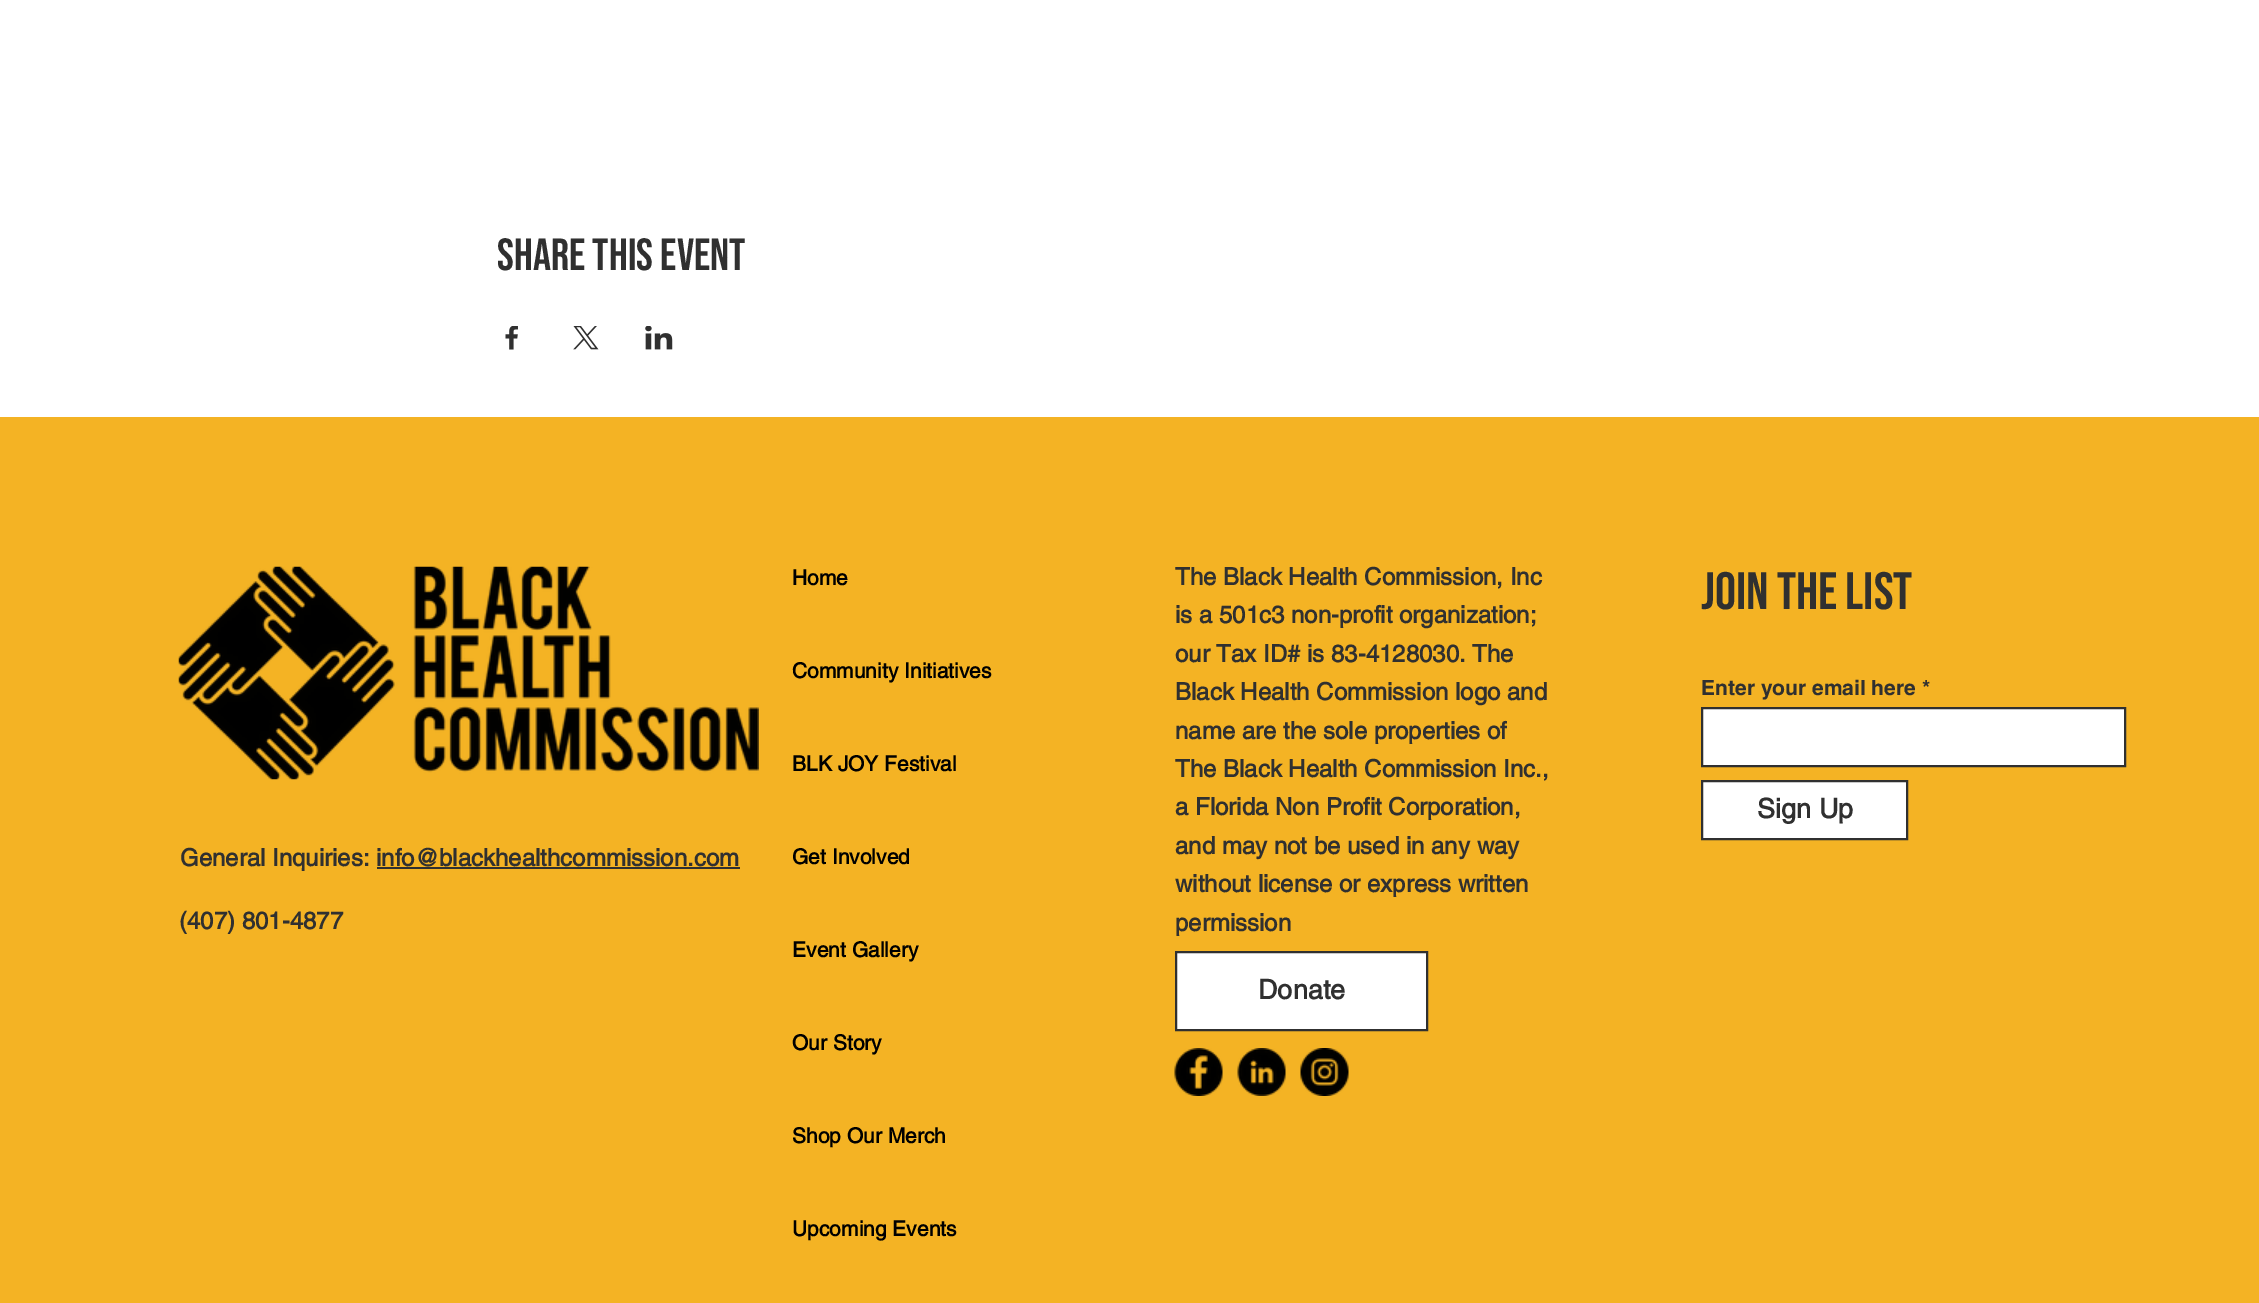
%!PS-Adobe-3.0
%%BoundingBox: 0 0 2259 1303
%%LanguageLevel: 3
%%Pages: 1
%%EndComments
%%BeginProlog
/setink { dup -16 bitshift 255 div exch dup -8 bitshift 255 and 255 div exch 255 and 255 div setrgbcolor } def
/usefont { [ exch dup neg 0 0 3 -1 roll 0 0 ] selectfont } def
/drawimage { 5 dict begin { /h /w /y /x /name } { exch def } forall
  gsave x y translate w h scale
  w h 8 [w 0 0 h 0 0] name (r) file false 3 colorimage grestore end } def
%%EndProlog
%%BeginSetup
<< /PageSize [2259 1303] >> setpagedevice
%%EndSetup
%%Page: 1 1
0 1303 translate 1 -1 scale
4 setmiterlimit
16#FFFFFF setink
0 0 2259 1303 rectfill
/BebasNeue-Regular 45 usefont
16#303030 setink
497 270 moveto (Share this event) show
(img1.raw) 505 326 13 24 drawimage
(img2.raw) 573 326 26 24 drawimage
(img3.raw) 645 326 28 24 drawimage
16#F4B324 setink
0 417 2259 886 rectfill
(img4.raw) 178 566 581 214 drawimage
/helvetica-Bold 21 usefont
16#000000 setink
[
    [(Home) 792 585]
    [(Community Initiatives) 792 678]
    [(BLK JOY Festival) 792 771]
    [(Get Involved) 792 864]
    [(Event Gallery) 792 957]
    [(Our Story) 792 1050]
    [(Shop Our Merch) 792 1143]
    [(Upcoming Events) 792 1236]
] { aload pop moveto show } forall
/helvetica-Bold 24 usefont
16#303030 setink
180 866 moveto (General Inquiries: info@blackhealthcommission.com) show
377 867 363 2 rectfill
[
    [(\(407\) 801-4877) 179 929]
    [(The Black Health Commission, Inc) 1175 585]
    [(is a 501c3 non-profit organization;) 1175 623]
    [(our Tax ID# is 83-4128030. The) 1175 662]
    [(Black Health Commission logo and) 1175 700]
    [(name are the sole properties of) 1175 739]
    [(The Black Health Commission Inc.,) 1175 777]
    [(a Florida Non Profit Corporation,) 1175 815]
    [(and may not be used in any way) 1175 854]
    [(without license or express written) 1175 892]
    [(permission) 1175 931]
] { aload pop moveto show } forall
16#FFFFFF setink
1176 952 moveto 1427 952 lineto 1427 1030 lineto 1176 1030 lineto closepath gsave fill grestore
16#303030 setink
2 setlinewidth
stroke
/helvetica-Bold 27 usefont
1258 999 moveto (Donate) show
(img5.raw) 1174 1048 49 48 drawimage
(img6.raw) 1237 1048 49 48 drawimage
(img7.raw) 1300 1048 49 48 drawimage
/BebasNeue-Regular 52.5 usefont
1701 609 moveto (Join the List) show
/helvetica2-Bold 21 usefont
1701 695 moveto (Enter your email here *) show
16#FFFFFF setink
1702 708 moveto 2125 708 lineto 2125 766 lineto 1702 766 lineto closepath gsave fill grestore
16#303030 setink
stroke
16#FFFFFF setink
1702 781 moveto 1907 781 lineto 1907 839 lineto 1702 839 lineto closepath gsave fill grestore
16#303030 setink
stroke
/helvetica-Bold 27 usefont
1757 818 moveto (Sign Up) show
showpage
%%EOF
